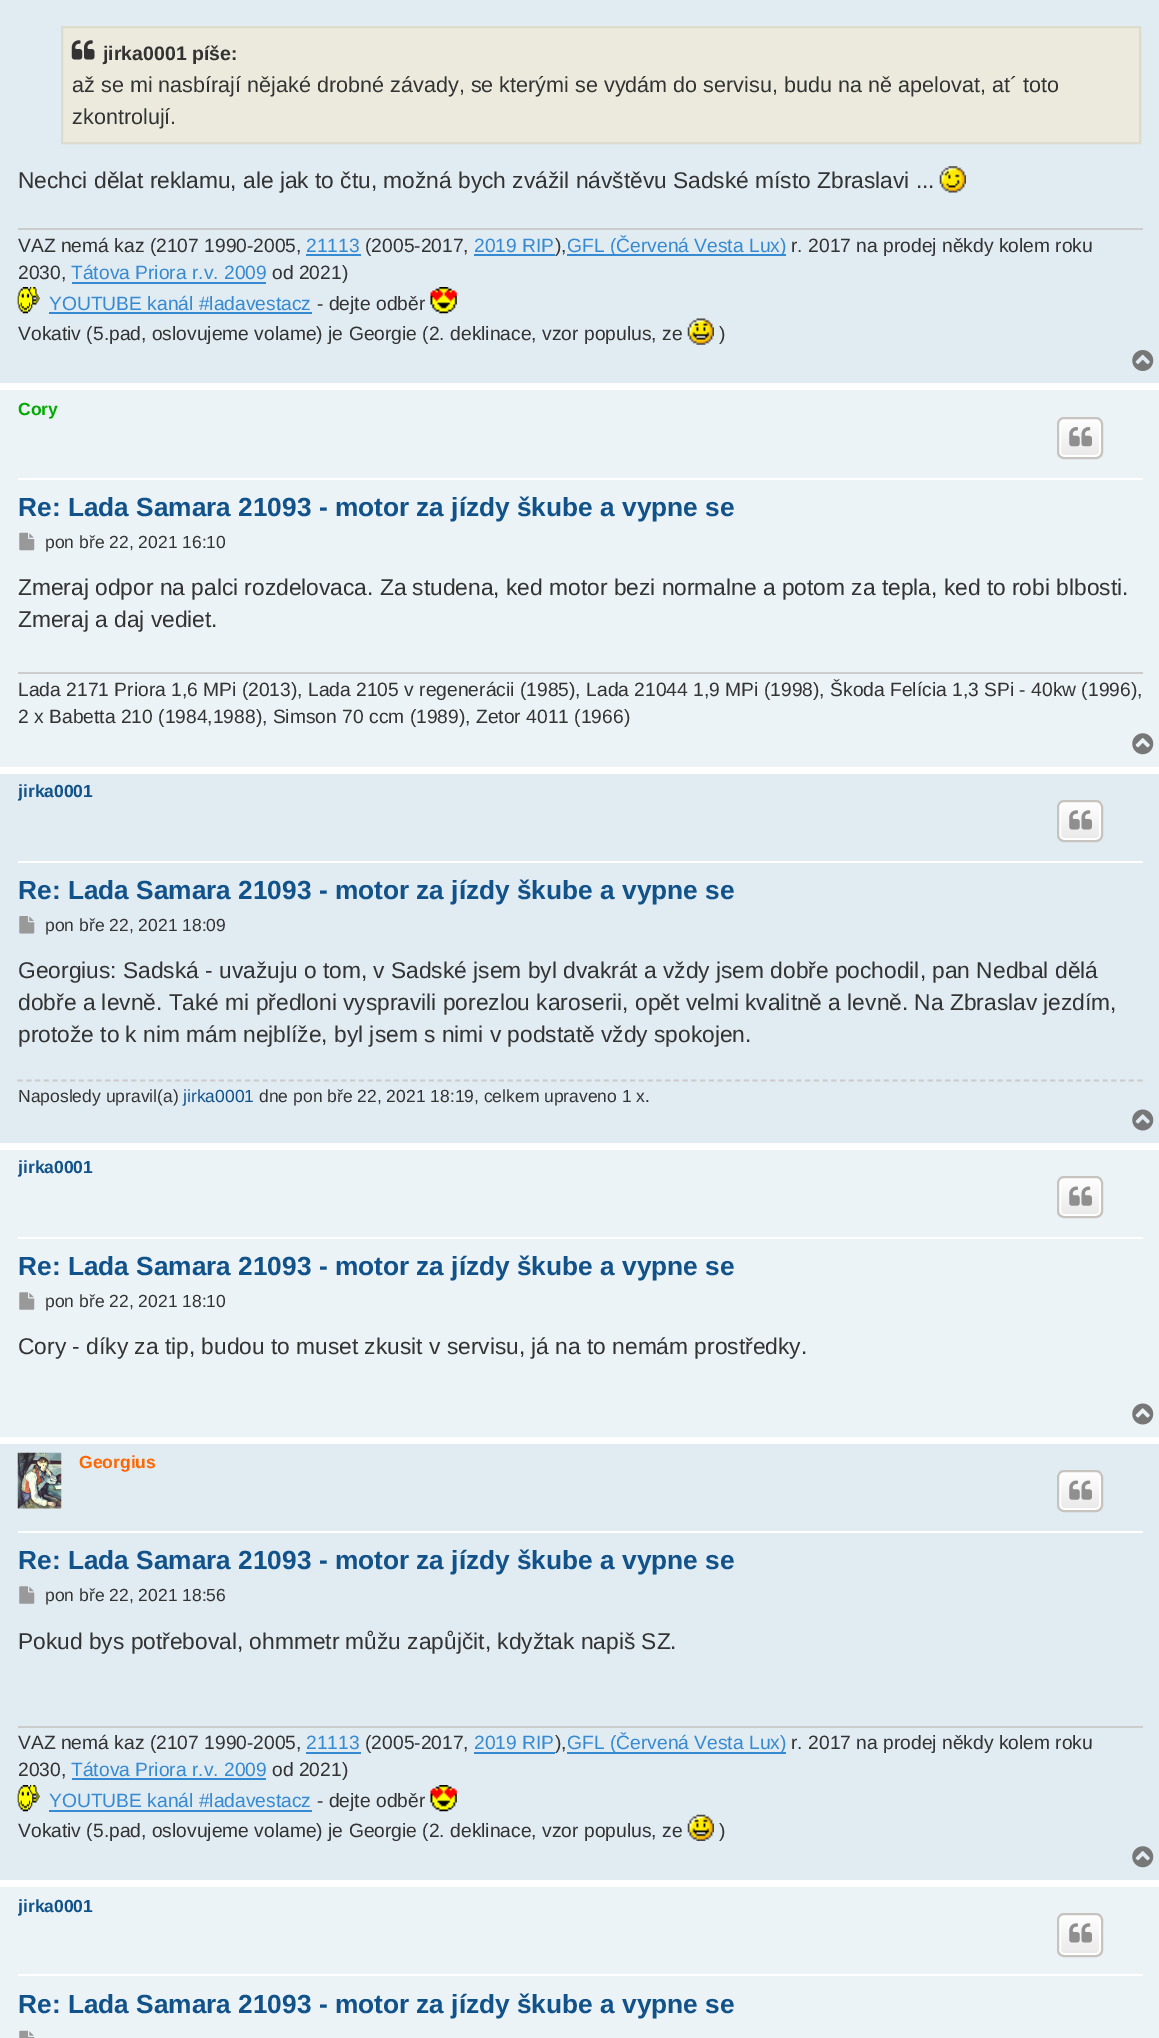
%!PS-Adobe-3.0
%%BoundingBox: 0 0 1159 2038
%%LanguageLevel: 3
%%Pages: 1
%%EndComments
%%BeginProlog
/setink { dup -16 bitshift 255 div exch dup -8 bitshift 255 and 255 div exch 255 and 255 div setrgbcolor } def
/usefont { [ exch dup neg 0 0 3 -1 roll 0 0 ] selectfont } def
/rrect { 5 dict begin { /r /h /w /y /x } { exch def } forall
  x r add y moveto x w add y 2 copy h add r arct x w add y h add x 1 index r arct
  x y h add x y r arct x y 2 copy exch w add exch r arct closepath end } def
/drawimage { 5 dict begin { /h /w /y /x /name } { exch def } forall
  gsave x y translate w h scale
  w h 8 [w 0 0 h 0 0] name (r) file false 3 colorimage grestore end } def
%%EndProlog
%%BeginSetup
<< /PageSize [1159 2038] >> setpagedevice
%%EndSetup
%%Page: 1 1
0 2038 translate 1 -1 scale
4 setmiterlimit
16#FFFFFF setink
0 0 1159 2038 rectfill
16#E1EBF2 setink
0 0 1159 383 rectfill
16#EBEADD setink
62 27 moveto 1140 27 lineto 1140 143 lineto 62 143 lineto closepath gsave fill grestore
16#DBDBCE setink
2 setlinewidth
stroke
(img1.raw) 71 40 24 20 drawimage
/LiberationSans-Bold 19.5 usefont
16#333333 setink
103 60 moveto (jirka0001 píše:) show
/LiberationSans-Regular 21.6 usefont
72 92 moveto (až se mi nasbírají nějaké drobné závady, se kterými se vydám do servisu, budu na ně apelovat, at´ toto) show
72 124 moveto (zkontrolují.) show
/LiberationSans-Regular 22.75 usefont
18 188 moveto (Nechci dělat reklamu, ale jak to čtu, možná bych zvážil návštěvu Sadské místo Zbraslavi ...) show
(img2.raw) 939 166 27 27 drawimage
16#CCCCCC setink
18 228 1125 2 rectfill
/LiberationSans-Regular 19.25 usefont
16#333333 setink
18 252 moveto (VAZ nemá kaz \(2107 1990-2005,) show
16#368AD2 setink
306 252 moveto (21113) show
306 254 55 2 rectfill
16#333333 setink
365 252 moveto (\(2005-2017,) show
16#368AD2 setink
474 252 moveto (2019 RIP) show
474 254 81 2 rectfill
16#333333 setink
555 252 moveto (\),) show
16#368AD2 setink
567 254 219 2 rectfill
567 252 moveto (GFL \(Červená Vesta Lux\)) show
16#333333 setink
791 252 moveto (r. 2017 na prodej někdy kolem roku) show
18 279 moveto (2030,) show
16#368AD2 setink
71 279 moveto (Tátova Priora r.v. 2009) show
72 282 194 2 rectfill
16#333333 setink
272 279 moveto (od 2021\)) show
(img3.raw) 17 287 23 27 drawimage
16#368AD2 setink
49 310 moveto (YOUTUBE kanál #ladavestacz) show
49 312 263 2 rectfill
16#333333 setink
317 310 moveto (- dejte odběr) show
(img4.raw) 430 287 27 27 drawimage
18 340 moveto (Vokativ \(5.pad, oslovujeme volame\) je Georgie \(2. deklinace, vzor populus, ze) show
(img5.raw) 687 318 27 27 drawimage
719 340 moveto (\)) show
(img6.raw) 1132 350 22 21 drawimage
16#ECF3F7 setink
0 390 1159 377 rectfill
16#FFFFFF setink
18 478 1125 2 rectfill
/LiberationSans-Bold 17.5 usefont
16#00AA00 setink
18 415 moveto (Cory) show
gsave
1057 417 46 42 7 rrect clip newpath
gsave 1057 418 moveto 1103 418 lineto 1103 457 lineto 1057 457 lineto closepath clip newpath
<< /ShadingType 2 /ColorSpace /DeviceRGB /Coords [1080 418 1080 457] /Extend [true true] /Function << /FunctionType 2 /Domain [0 1] /C0 [1 1 1] /C1 [0.914 0.914 0.914] /N 1 >> >> shfill grestore
grestore
16#FFFFFF setink
1060 419 40 37 4 rrect stroke
16#C7C3BF setink
1058 418 44 40 6 rrect stroke
(img7.raw) 1069 427 23 20 drawimage
/LiberationSans-Bold 26.25 usefont
16#105289 setink
18 516 moveto (Re: Lada Samara 21093 - motor za jízdy škube a vypne se) show
(img8.raw) 19 532 16 19 drawimage
/LiberationSans-Regular 17.5 usefont
16#333333 setink
45 548 moveto (pon bře 22, 2021 16:10) show
/LiberationSans-Regular 22.75 usefont
18 595 moveto (Zmeraj odpor na palci rozdelovaca. Za studena, ked motor bezi normalne a potom za tepla, ked to robi blbosti.) show
18 627 moveto (Zmeraj a daj vediet.) show
16#CCCCCC setink
18 672 1125 2 rectfill
/LiberationSans-Regular 19.25 usefont
16#333333 setink
18 696 moveto (Lada 2171 Priora 1,6 MPi \(2013\), Lada 2105 v regenerácii \(1985\), Lada 21044 1,9 MPi \(1998\), Škoda Felícia 1,3 SPi - 40kw \(1996\),) show
18 723 moveto (2 x Babetta 210 \(1984,1988\), Simson 70 ccm \(1989\), Zetor 4011 \(1966\)) show
(img9.raw) 1132 733 22 22 drawimage
16#E1EBF2 setink
0 774 1159 369 rectfill
16#FFFFFF setink
18 861 1125 2 rectfill
gsave
18 782 1125 79 rectclip
/LiberationSans-Bold 17.5 usefont
16#105289 setink
18 797 moveto (jirka0001) show
grestore
gsave
1057 800 46 42 7 rrect clip newpath
gsave 1057 802 moveto 1103 802 lineto 1103 840 lineto 1057 840 lineto closepath clip newpath
<< /ShadingType 2 /ColorSpace /DeviceRGB /Coords [1080 802 1080 840] /Extend [true true] /Function << /FunctionType 2 /Domain [0 1] /C0 [1 1 1] /C1 [0.914 0.914 0.914] /N 1 >> >> shfill grestore
grestore
1060 803 40 36 4 rrect stroke
16#C7C3BF setink
1058 801 44 40 6 rrect stroke
(img10.raw) 1069 810 23 20 drawimage
/LiberationSans-Bold 26.25 usefont
16#105289 setink
18 899 moveto (Re: Lada Samara 21093 - motor za jízdy škube a vypne se) show
(img11.raw) 19 916 16 18 drawimage
/LiberationSans-Regular 17.5 usefont
16#333333 setink
45 931 moveto (pon bře 22, 2021 18:09) show
/LiberationSans-Regular 22.75 usefont
[
    [(Georgius: Sadská - uvažuju o tom, v Sadské jsem byl dvakrát a vždy jsem dobře pochodil, pan Nedbal dělá) 18 978]
    [(dobře a levně. Také mi předloni vyspravili porezlou karoserii, opět velmi kvalitně a levně. Na Zbraslav jezdím,) 18 1010]
    [(protože to k nim mám nejblíže, byl jsem s nimi v podstatě vždy spokojen.) 18 1042]
] { aload pop moveto show } forall
16#CCCCCC setink
1.8 setlinewidth
[5.25 3.5] 0 setdash
17.5 1080.5 moveto 1143 1080.5 lineto stroke
/LiberationSans-Regular 17.5 usefont
16#333333 setink
18 1102 moveto (Naposledy upravil\(a\)) show
16#105289 setink
183 1102 moveto (jirka0001) show
16#333333 setink
259 1102 moveto (dne pon bře 22, 2021 18:19, celkem upraveno 1 x.) show
(img12.raw) 1132 1109 22 22 drawimage
16#ECF3F7 setink
0 1150 1159 287 rectfill
16#FFFFFF setink
18 1237 1125 2 rectfill
gsave
18 1159 1125 78 rectclip
/LiberationSans-Bold 17.5 usefont
16#105289 setink
18 1173 moveto (jirka0001) show
grestore
gsave
1057 1176 46 42 7 rrect clip newpath
gsave 1057 1178 moveto 1103 1178 lineto 1103 1216 lineto 1057 1216 lineto closepath clip newpath
<< /ShadingType 2 /ColorSpace /DeviceRGB /Coords [1080 1178 1080 1216] /Extend [true true] /Function << /FunctionType 2 /Domain [0 1] /C0 [1 1 1] /C1 [0.914 0.914 0.914] /N 1 >> >> shfill grestore
grestore
2 setlinewidth
[] 0 setdash
1060 1179 40 36 4 rrect stroke
16#C7C3BF setink
1058 1177 44 40 6 rrect stroke
(img13.raw) 1069 1186 23 20 drawimage
/LiberationSans-Bold 26.25 usefont
16#105289 setink
18 1275 moveto (Re: Lada Samara 21093 - motor za jízdy škube a vypne se) show
(img14.raw) 19 1292 16 18 drawimage
/LiberationSans-Regular 17.5 usefont
16#333333 setink
45 1307 moveto (pon bře 22, 2021 18:10) show
/LiberationSans-Regular 22.75 usefont
18 1354 moveto (Cory - díky za tip, budou to muset zkusit v servisu, já na to nemám prostředky.) show
(img15.raw) 1132 1403 22 22 drawimage
16#E1EBF2 setink
0 1444 1159 436 rectfill
16#FFFFFF setink
18 1531 1125 2 rectfill
(img16.raw) 17 1452 45 57 drawimage
/LiberationSans-Bold 17.5 usefont
16#FF6600 setink
79 1468 moveto (Georgius) show
gsave
1057 1470 46 42 7 rrect clip newpath
gsave 1057 1472 moveto 1103 1472 lineto 1103 1510 lineto 1057 1510 lineto closepath clip newpath
<< /ShadingType 2 /ColorSpace /DeviceRGB /Coords [1080 1472 1080 1510] /Extend [true true] /Function << /FunctionType 2 /Domain [0 1] /C0 [1 1 1] /C1 [0.914 0.914 0.914] /N 1 >> >> shfill grestore
grestore
16#FFFFFF setink
1060 1473 40 36 4 rrect stroke
16#C7C3BF setink
1058 1471 44 40 6 rrect stroke
(img13.raw) 1069 1480 23 20 drawimage
/LiberationSans-Bold 26.25 usefont
16#105289 setink
18 1569 moveto (Re: Lada Samara 21093 - motor za jízdy škube a vypne se) show
(img17.raw) 19 1586 16 18 drawimage
/LiberationSans-Regular 17.5 usefont
16#333333 setink
45 1601 moveto (pon bře 22, 2021 18:56) show
/LiberationSans-Regular 22.75 usefont
18 1649 moveto (Pokud bys potřeboval, ohmmetr můžu zapůjčit, kdyžtak napiš SZ.) show
16#CCCCCC setink
18 1726 1125 2 rectfill
/LiberationSans-Regular 19.25 usefont
16#333333 setink
18 1749 moveto (VAZ nemá kaz \(2107 1990-2005,) show
16#368AD2 setink
306 1749 moveto (21113) show
306 1752 55 2 rectfill
16#333333 setink
365 1749 moveto (\(2005-2017,) show
16#368AD2 setink
474 1749 moveto (2019 RIP) show
474 1752 81 2 rectfill
16#333333 setink
555 1749 moveto (\),) show
16#368AD2 setink
567 1752 219 2 rectfill
567 1749 moveto (GFL \(Červená Vesta Lux\)) show
16#333333 setink
791 1749 moveto (r. 2017 na prodej někdy kolem roku) show
18 1776 moveto (2030,) show
16#368AD2 setink
71 1776 moveto (Tátova Priora r.v. 2009) show
72 1778 194 2 rectfill
16#333333 setink
272 1776 moveto (od 2021\)) show
(img3.raw) 17 1785 23 27 drawimage
16#368AD2 setink
49 1807 moveto (YOUTUBE kanál #ladavestacz) show
49 1810 263 2 rectfill
16#333333 setink
317 1807 moveto (- dejte odběr) show
(img4.raw) 430 1785 27 27 drawimage
18 1837 moveto (Vokativ \(5.pad, oslovujeme volame\) je Georgie \(2. deklinace, vzor populus, ze) show
(img18.raw) 687 1814 27 27 drawimage
719 1837 moveto (\)) show
(img19.raw) 1132 1846 22 22 drawimage
16#ECF3F7 setink
0 1887 1159 151 rectfill
16#FFFFFF setink
18 1974 1125 2 rectfill
gsave
18 1895 1125 79 rectclip
/LiberationSans-Bold 17.5 usefont
16#105289 setink
18 1912 moveto (jirka0001) show
grestore
gsave
1057 1913 46 44 7 rrect clip newpath
gsave 1057 1915 moveto 1103 1915 lineto 1103 1955 lineto 1057 1955 lineto closepath clip newpath
<< /ShadingType 2 /ColorSpace /DeviceRGB /Coords [1080 1915 1080 1955] /Extend [true true] /Function << /FunctionType 2 /Domain [0 1] /C0 [1 1 1] /C1 [0.914 0.914 0.914] /N 1 >> >> shfill grestore
grestore
1060 1916 40 38 4 rrect stroke
16#C7C3BF setink
1058 1914 44 42 6 rrect stroke
(img20.raw) 1069 1923 23 20 drawimage
/LiberationSans-Bold 26.25 usefont
16#105289 setink
18 2013 moveto (Re: Lada Samara 21093 - motor za jízdy škube a vypne se) show
(img21.raw) 19 2030 16 8 drawimage
showpage
%%EOF
